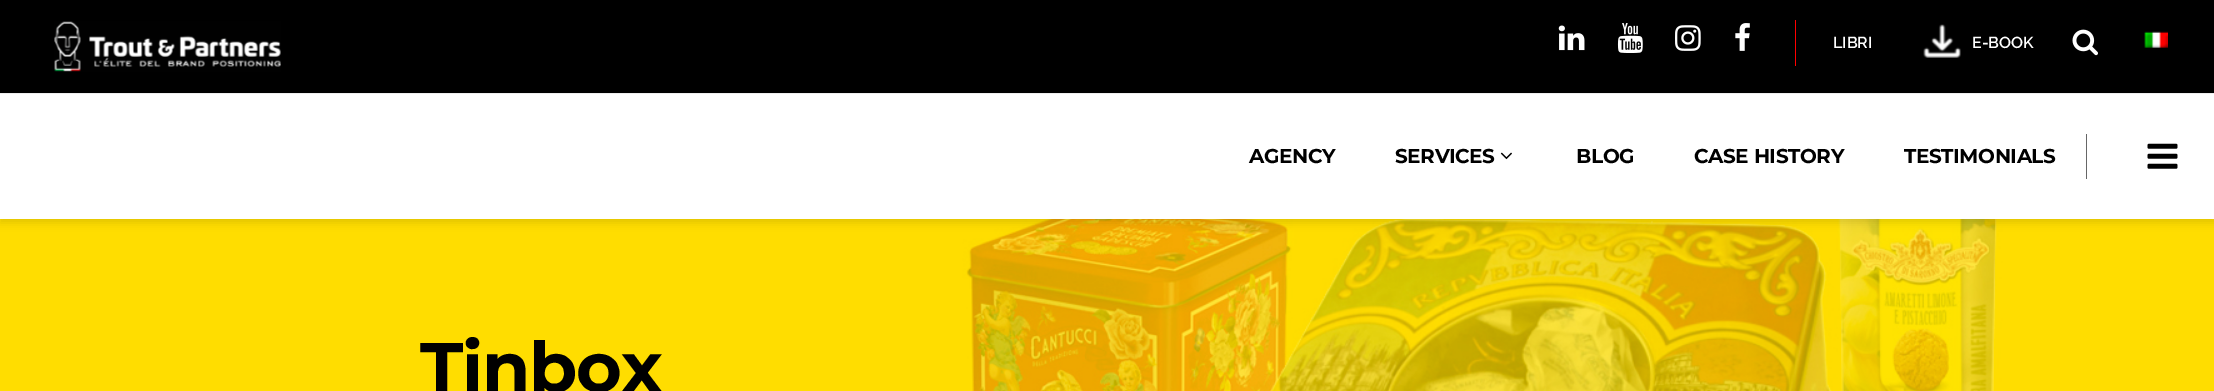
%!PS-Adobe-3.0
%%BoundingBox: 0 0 2214 391
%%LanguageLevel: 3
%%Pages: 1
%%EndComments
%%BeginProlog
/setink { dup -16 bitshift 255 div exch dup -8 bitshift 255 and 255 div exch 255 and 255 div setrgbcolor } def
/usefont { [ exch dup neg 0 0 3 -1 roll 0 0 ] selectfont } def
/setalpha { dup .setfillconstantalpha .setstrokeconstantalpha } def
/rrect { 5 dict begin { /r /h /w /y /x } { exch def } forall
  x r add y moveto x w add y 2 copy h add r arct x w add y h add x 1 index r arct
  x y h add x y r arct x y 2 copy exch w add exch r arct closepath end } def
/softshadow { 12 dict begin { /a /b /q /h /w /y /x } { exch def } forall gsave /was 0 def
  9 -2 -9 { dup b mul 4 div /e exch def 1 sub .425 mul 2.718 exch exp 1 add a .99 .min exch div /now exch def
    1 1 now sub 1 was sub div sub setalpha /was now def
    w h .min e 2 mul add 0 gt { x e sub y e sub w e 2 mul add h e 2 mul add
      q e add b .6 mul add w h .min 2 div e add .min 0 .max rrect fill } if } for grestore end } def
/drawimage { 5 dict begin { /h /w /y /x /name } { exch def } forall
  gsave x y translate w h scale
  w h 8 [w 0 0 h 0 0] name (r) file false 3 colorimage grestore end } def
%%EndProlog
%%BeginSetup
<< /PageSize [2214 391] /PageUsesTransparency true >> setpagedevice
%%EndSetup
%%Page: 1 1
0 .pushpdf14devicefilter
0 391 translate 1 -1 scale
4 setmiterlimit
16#FFFFFF setink
0 0 2214 391 rectfill
(img11.raw) 0 219 2214 172 drawimage
16#000000 setink
0 4 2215 219 0 4 0.11 softshadow
0 0 2214 93 rectfill
16#EDEDED setink
0 93 2214 1 rectfill
(img1.raw) 54 21 227 51 drawimage
16#FF0000 setink
1795 20 1 46 rectfill
(img2.raw) 1558 25 27 26 drawimage
(img3.raw) 1617 23 26 30 drawimage
(img4.raw) 1675 25 26 26 drawimage
(img5.raw) 1735 23 15 28 drawimage
/Raleway-SemiBold 16 usefont
16#FFFFFF setink
1833 48 moveto (LIBRI) show
(img6.raw) 1923 24 38 34 drawimage
1972 48 moveto (E-BOOK) show
(img7.raw) 2072 29 26 27 drawimage
(img8.raw) 2144 31 24 17 drawimage
0 94 2214 125 rectfill
/Montserrat-Bold 20 usefont
16#000000 setink
1249 163 moveto -0.4 0 (AGENCY) ashow
1395 163 moveto -0.4 0 (SERVICES) ashow
(img9.raw) 1500 152 12 8 drawimage
1576 163 moveto -0.4 0 (BLOG) ashow
1694 163 moveto -0.4 0 (CASE HISTORY) ashow
16#666666 setink
2086 134 1 45 rectfill
16#000000 setink
1904 163 moveto -0.4 0 (TESTIMONIALS) ashow
(img10.raw) 2147 143 31 26 drawimage
/Montserrat-Bold 70 usefont
420 392 moveto -1.25 0 (Tinbox) ashow
.poppdf14devicefilter showpage
%%EOF
